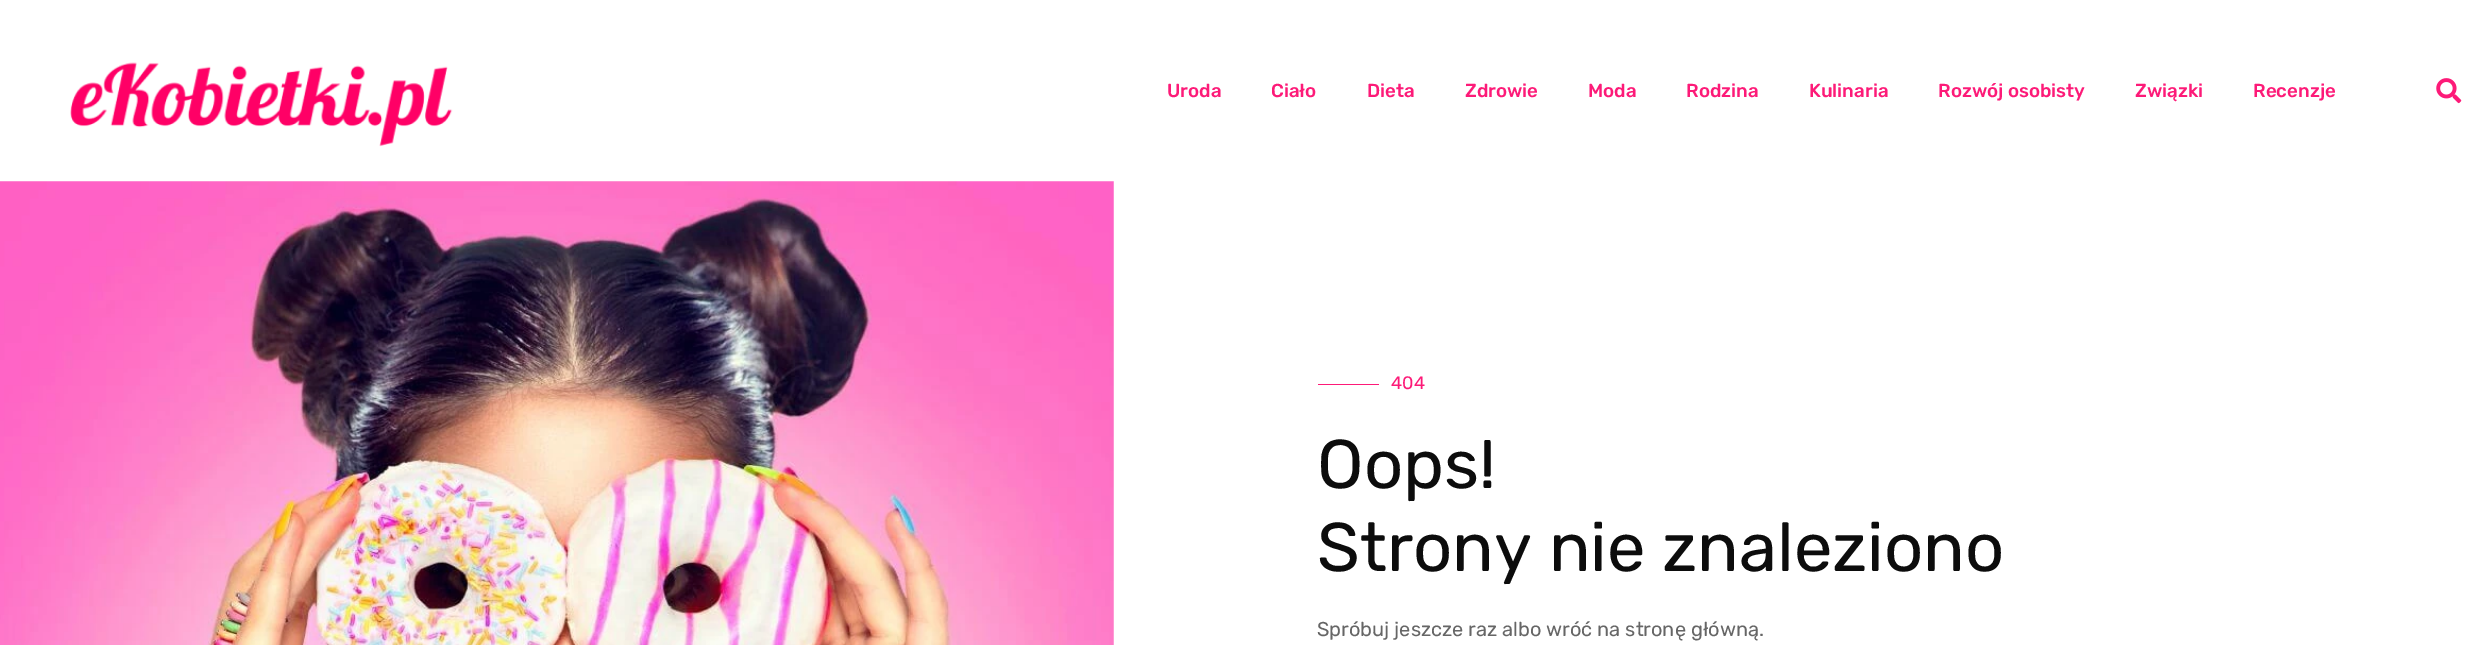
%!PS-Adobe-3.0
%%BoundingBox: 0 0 2473 645
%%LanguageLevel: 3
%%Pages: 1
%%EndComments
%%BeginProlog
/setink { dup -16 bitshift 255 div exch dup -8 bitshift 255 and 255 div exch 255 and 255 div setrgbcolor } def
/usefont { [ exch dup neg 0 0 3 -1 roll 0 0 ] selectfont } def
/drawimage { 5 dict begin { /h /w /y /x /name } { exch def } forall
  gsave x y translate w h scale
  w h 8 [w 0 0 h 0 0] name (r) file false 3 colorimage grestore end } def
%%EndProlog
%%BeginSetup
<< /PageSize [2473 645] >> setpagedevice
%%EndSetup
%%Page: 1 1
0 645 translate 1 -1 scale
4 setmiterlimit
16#FFFFFF setink
0 0 2473 645 rectfill
(img1.raw) 70 62 383 85 drawimage
/Rubik-Medium 18.75 usefont
16#FD1A78 setink
[
    [(Uroda) 1167 97]
    [(Ciało) 1271 97]
    [(Dieta) 1367 97]
    [(Zdrowie) 1465 97]
    [(Moda) 1588 97]
    [(Rodzina) 1686 97]
    [(Kulinaria) 1809 97]
    [(Rozwój osobisty) 1938 97]
    [(Związki) 2135 97]
    [(Recenzje) 2253 97]
] { aload pop moveto show } forall
(img2.raw) 2436 78 26 26 drawimage
(img3.raw) 0 181 1114 464 drawimage
1318 384 61 1 rectfill
/Rubik-Regular 18 usefont
1391 389 moveto (404) show
/Rubik-Regular 68.75 usefont
16#0C0C0C setink
1317 488 moveto (Oops!) show
1317 571 moveto (Strony nie znaleziono) show
/Rubik-Regular 20 usefont
16#666666 setink
1317 636 moveto (Spróbuj jeszcze raz albo wróć na stronę główną.) show
showpage
%%EOF
